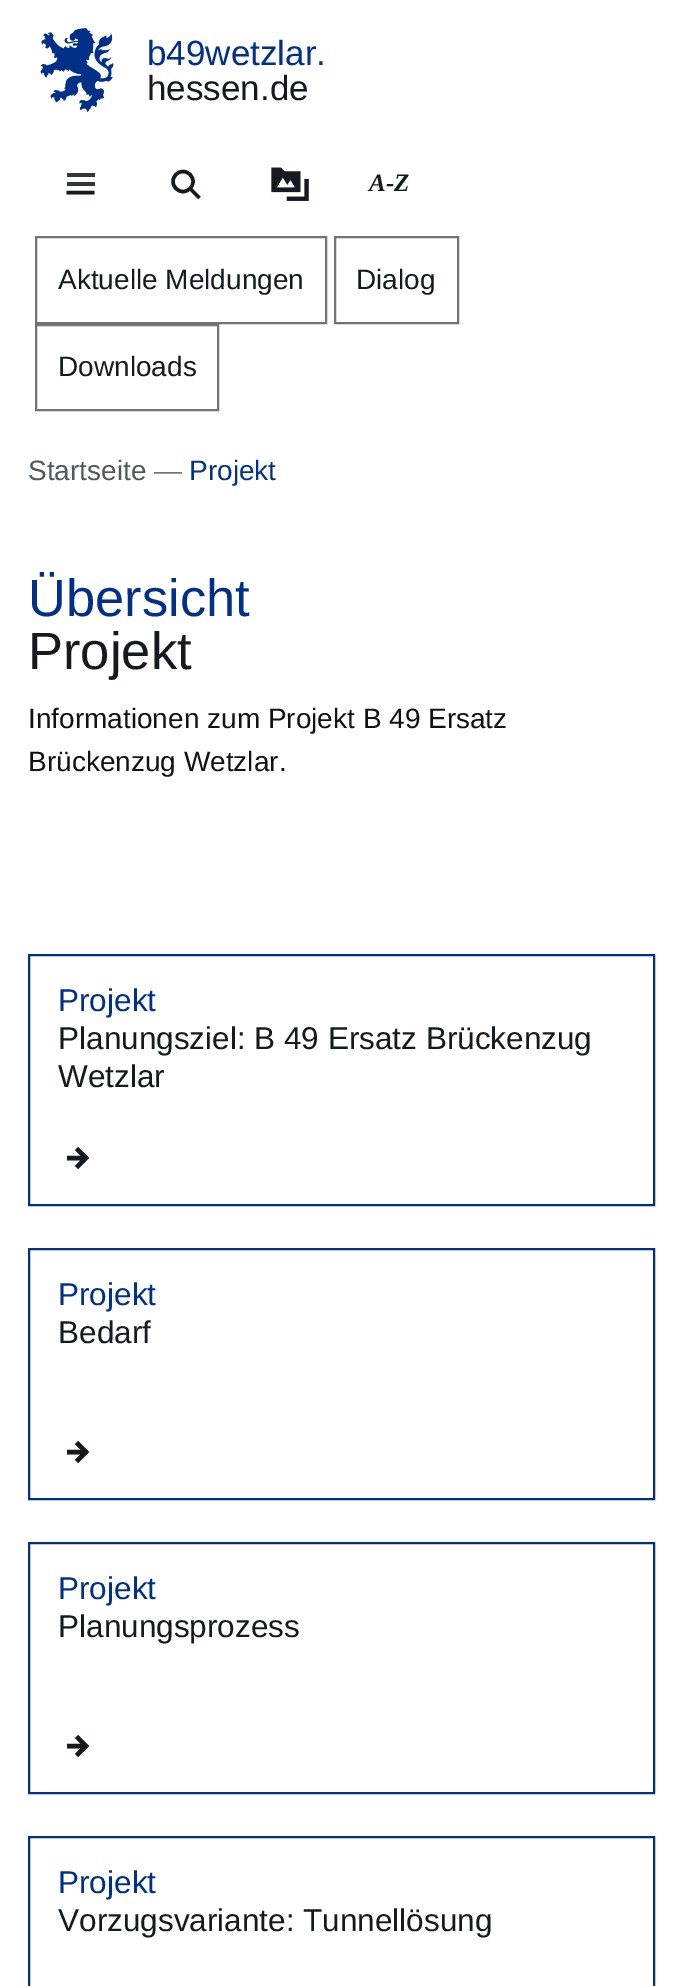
%!PS-Adobe-3.0
%%BoundingBox: 0 0 681 1986
%%LanguageLevel: 3
%%Pages: 1
%%EndComments
%%BeginProlog
/setink { dup -16 bitshift 255 div exch dup -8 bitshift 255 and 255 div exch 255 and 255 div setrgbcolor } def
/usefont { [ exch dup neg 0 0 3 -1 roll 0 0 ] selectfont } def
/disc { newpath 0 360 arc closepath } def
/drawimage { 5 dict begin { /h /w /y /x /name } { exch def } forall
  gsave x y translate w h scale
  w h 8 [w 0 0 h 0 0] name (r) file false 3 colorimage grestore end } def
%%EndProlog
%%BeginSetup
<< /PageSize [681 1986] >> setpagedevice
%%EndSetup
%%Page: 1 1
0 1986 translate 1 -1 scale
4 setmiterlimit
16#FFFFFF setink
0 0 681 1986 rectfill
(img1.raw) 40 28 74 84 drawimage
/LiberationSans-Regular 35 usefont
16#003087 setink
147 65 moveto (b49wetzlar.) show
16#16191F setink
147 100 moveto (hessen.de) show
16#33363B setink
67 173 28 4 rectfill
67 182 28 4 rectfill
16#16191F setink
3.5 setlinewidth
66.5 192.5 moveto 94.5 192.5 lineto stroke
190 188.5 moveto 199.5 198 lineto stroke
183 181.5 10 disc stroke
(img2.raw) 271 167 38 34 drawimage
/LiberationSerif-BoldItalic 25 usefont
369 191 moveto (A-Z) show
16#737373 setink
2 setlinewidth
36 237 290 86 rectstroke
/LiberationSans-Regular 28 usefont
16#16191F setink
58 289 moveto (Aktuelle Meldungen) show
16#737373 setink
335 237 123 86 rectstroke
16#16191F setink
356 289 moveto (Dialog) show
16#737373 setink
36 325 182 85 rectstroke
16#16191F setink
58 376 moveto (Downloads) show
16#515760 setink
28 480 moveto (Startseite) show
16#737373 setink
154 480 moveto (—) show
16#003087 setink
189 480 moveto (Projekt) show
/LiberationSans-Regular 52.5 usefont
28 616 moveto (Übersicht) show
16#16191F setink
28 669 moveto (Projekt) show
/LiberationSans-Regular 28 usefont
16#121212 setink
28 728 moveto (Informationen zum Projekt B 49 Ersatz) show
28 771 moveto (Brückenzug Wetzlar.) show
16#003087 setink
29 955 625 250 rectstroke
/LiberationSans-Regular 31.5 usefont
58 1011 moveto (Projekt) show
16#16191F setink
58 1049 moveto (Planungsziel: B 49 Ersatz Brückenzug) show
58 1087 moveto (Wetzlar) show
4.5 setlinewidth
76.5 1148.5 moveto 86 1158 lineto 76.5 1167.5 lineto 86 1158 moveto 67 1158 lineto stroke
16#003087 setink
2 setlinewidth
29 1249 625 250 rectstroke
58 1305 moveto (Projekt) show
16#16191F setink
58 1343 moveto (Bedarf) show
4.5 setlinewidth
76.5 1442.5 moveto 86 1452 lineto 76.5 1461.5 lineto 86 1452 moveto 67 1452 lineto stroke
16#003087 setink
2 setlinewidth
29 1543 625 250 rectstroke
58 1599 moveto (Projekt) show
16#16191F setink
58 1637 moveto (Planungsprozess) show
4.5 setlinewidth
76.5 1736.5 moveto 86 1746 lineto 76.5 1755.5 lineto 86 1746 moveto 67 1746 lineto stroke
16#003087 setink
2 setlinewidth
29 1837 625 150 rectstroke
58 1893 moveto (Projekt) show
16#16191F setink
58 1931 moveto (Vorzugsvariante: Tunnellösung) show
showpage
%%EOF
